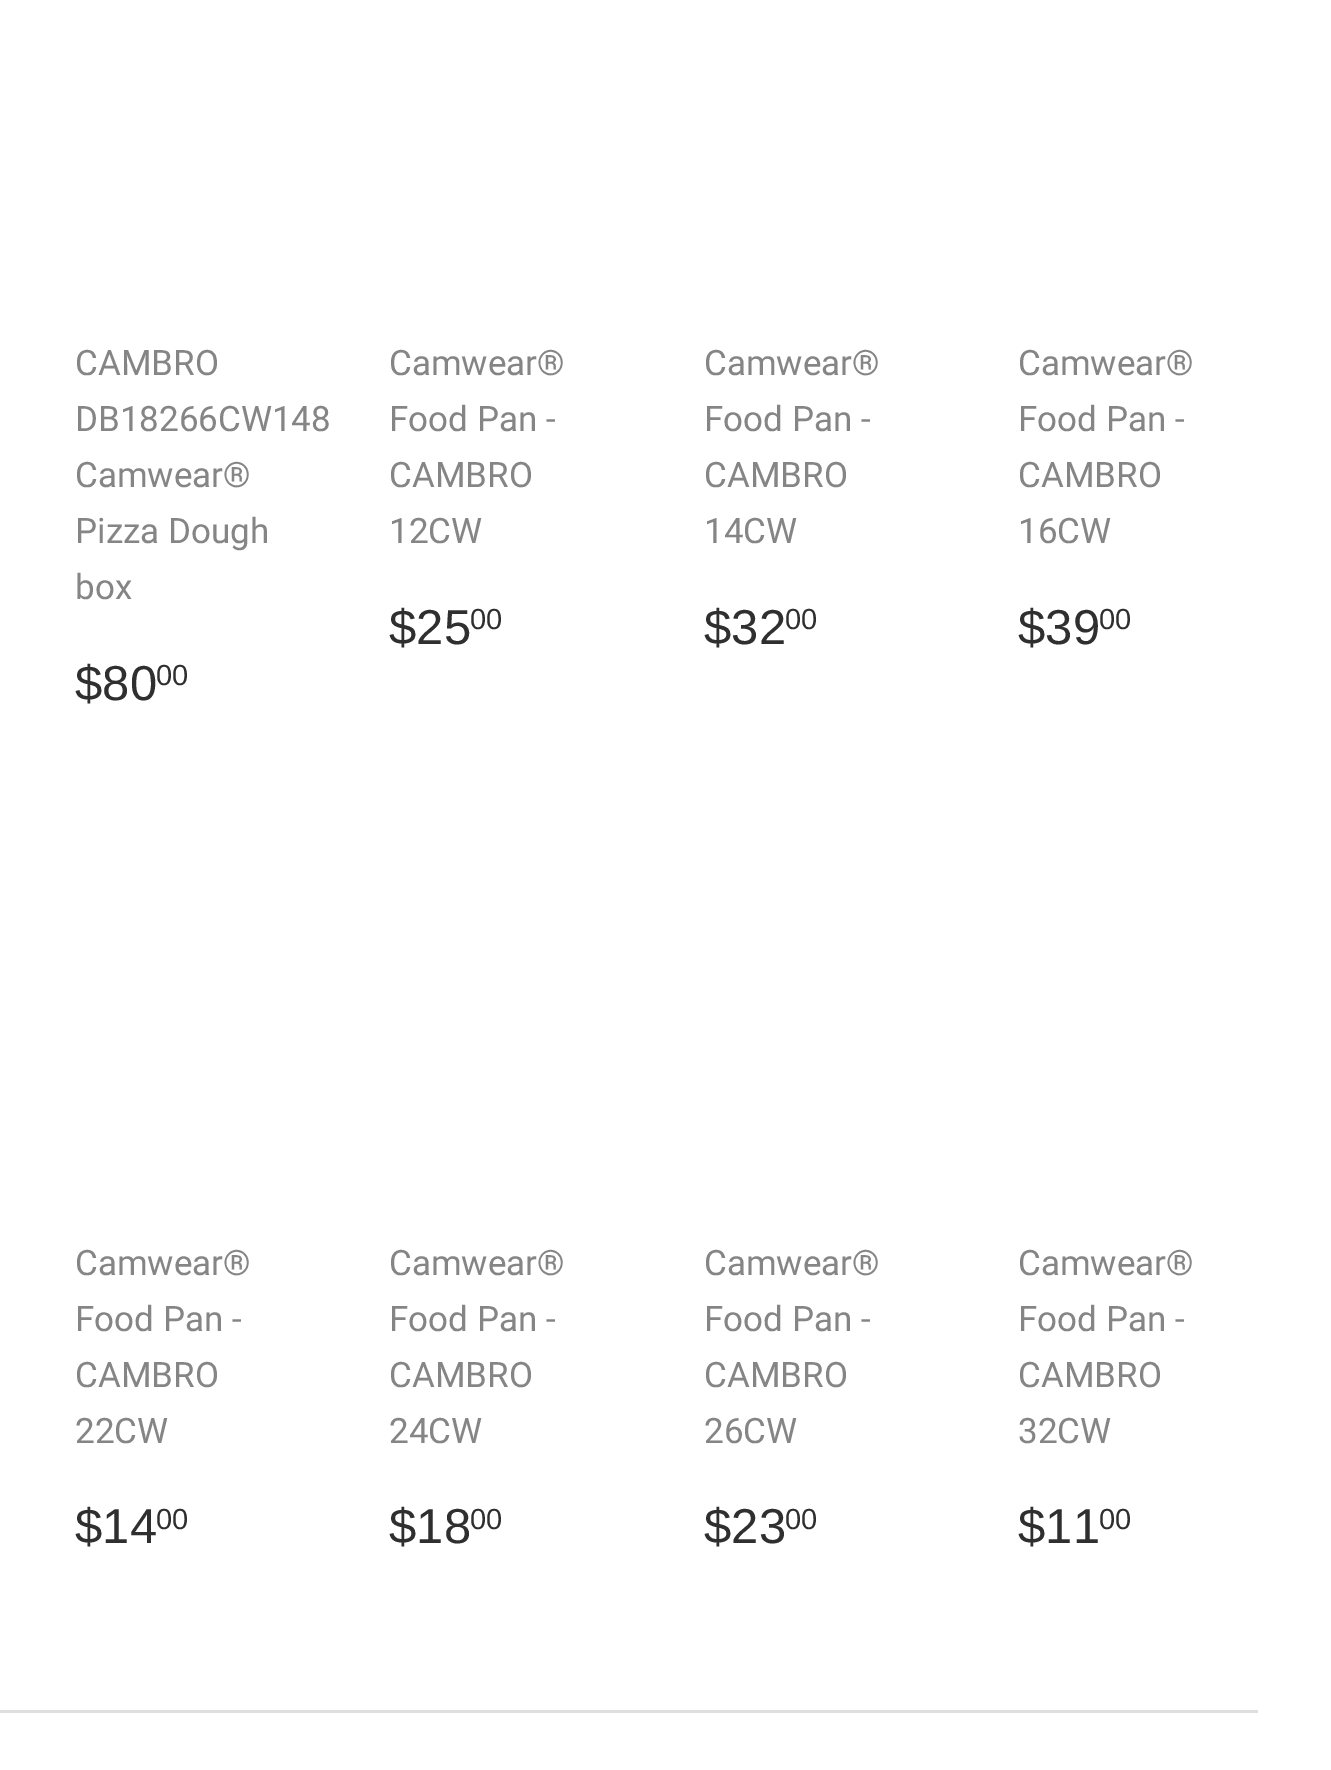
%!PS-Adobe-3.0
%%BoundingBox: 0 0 1331 1770
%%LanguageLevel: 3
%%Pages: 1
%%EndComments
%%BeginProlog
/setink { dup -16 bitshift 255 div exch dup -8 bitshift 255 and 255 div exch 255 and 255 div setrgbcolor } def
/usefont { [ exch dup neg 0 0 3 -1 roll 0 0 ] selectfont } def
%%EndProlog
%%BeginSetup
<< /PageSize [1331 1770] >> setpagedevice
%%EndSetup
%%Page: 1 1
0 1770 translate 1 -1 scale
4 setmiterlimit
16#FFFFFF setink
0 0 1331 1770 rectfill
/Roboto-Regular 35 usefont
16#858585 setink
[
    [(CAMBRO) 75 375]
    [(DB18266CW148) 75 431]
    [(Camwear®) 75 487]
    [(Pizza Dough) 75 543]
    [(box) 75 599]
] { aload pop moveto show } forall
/Arimo-Regular 49 usefont
16#2F2F2F setink
75 700 moveto ($80) show
/Arimo-Regular 29 usefont
156 685 moveto (00) show
/Roboto-Regular 35 usefont
16#858585 setink
[
    [(Camwear®) 389 375]
    [(Food Pan -) 389 431]
    [(CAMBRO) 389 487]
    [(12CW) 389 543]
] { aload pop moveto show } forall
/Arimo-Regular 49 usefont
16#2F2F2F setink
389 644 moveto ($25) show
/Arimo-Regular 29 usefont
470 629 moveto (00) show
/Roboto-Regular 35 usefont
16#858585 setink
[
    [(Camwear®) 704 375]
    [(Food Pan -) 704 431]
    [(CAMBRO) 704 487]
    [(14CW) 704 543]
] { aload pop moveto show } forall
/Arimo-Regular 49 usefont
16#2F2F2F setink
704 644 moveto ($32) show
/Arimo-Regular 29 usefont
785 629 moveto (00) show
/Roboto-Regular 35 usefont
16#858585 setink
[
    [(Camwear®) 1018 375]
    [(Food Pan -) 1018 431]
    [(CAMBRO) 1018 487]
    [(16CW) 1018 543]
] { aload pop moveto show } forall
/Arimo-Regular 49 usefont
16#2F2F2F setink
1018 644 moveto ($39) show
/Arimo-Regular 29 usefont
1099 629 moveto (00) show
/Roboto-Regular 35 usefont
16#858585 setink
[
    [(Camwear®) 75 1275]
    [(Food Pan -) 75 1331]
    [(CAMBRO) 75 1387]
    [(22CW) 75 1443]
] { aload pop moveto show } forall
/Arimo-Regular 49 usefont
16#2F2F2F setink
75 1543 moveto ($14) show
/Arimo-Regular 29 usefont
156 1529 moveto (00) show
/Roboto-Regular 35 usefont
16#858585 setink
[
    [(Camwear®) 389 1275]
    [(Food Pan -) 389 1331]
    [(CAMBRO) 389 1387]
    [(24CW) 389 1443]
] { aload pop moveto show } forall
/Arimo-Regular 49 usefont
16#2F2F2F setink
389 1543 moveto ($18) show
/Arimo-Regular 29 usefont
470 1529 moveto (00) show
/Roboto-Regular 35 usefont
16#858585 setink
[
    [(Camwear®) 704 1275]
    [(Food Pan -) 704 1331]
    [(CAMBRO) 704 1387]
    [(26CW) 704 1443]
] { aload pop moveto show } forall
/Arimo-Regular 49 usefont
16#2F2F2F setink
704 1543 moveto ($23) show
/Arimo-Regular 29 usefont
785 1529 moveto (00) show
/Roboto-Regular 35 usefont
16#858585 setink
[
    [(Camwear®) 1018 1275]
    [(Food Pan -) 1018 1331]
    [(CAMBRO) 1018 1387]
    [(32CW) 1018 1443]
] { aload pop moveto show } forall
/Arimo-Regular 49 usefont
16#2F2F2F setink
1018 1543 moveto ($11) show
/Arimo-Regular 29 usefont
1099 1529 moveto (00) show
16#DEDEDE setink
0 1710 1258 3 rectfill
showpage
%%EOF
